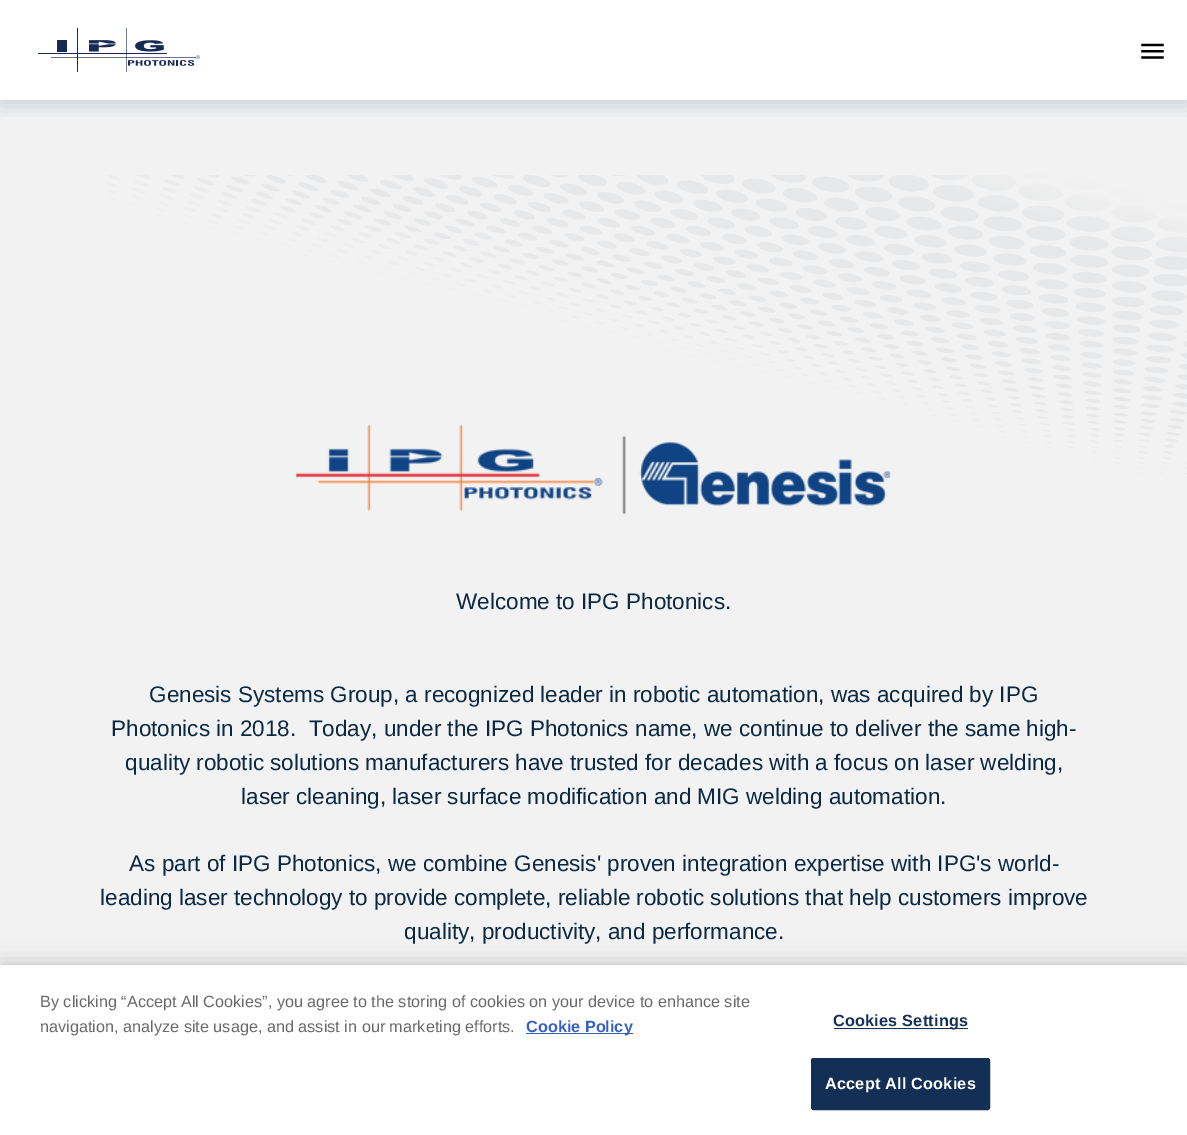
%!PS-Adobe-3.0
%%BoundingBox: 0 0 1187 1135
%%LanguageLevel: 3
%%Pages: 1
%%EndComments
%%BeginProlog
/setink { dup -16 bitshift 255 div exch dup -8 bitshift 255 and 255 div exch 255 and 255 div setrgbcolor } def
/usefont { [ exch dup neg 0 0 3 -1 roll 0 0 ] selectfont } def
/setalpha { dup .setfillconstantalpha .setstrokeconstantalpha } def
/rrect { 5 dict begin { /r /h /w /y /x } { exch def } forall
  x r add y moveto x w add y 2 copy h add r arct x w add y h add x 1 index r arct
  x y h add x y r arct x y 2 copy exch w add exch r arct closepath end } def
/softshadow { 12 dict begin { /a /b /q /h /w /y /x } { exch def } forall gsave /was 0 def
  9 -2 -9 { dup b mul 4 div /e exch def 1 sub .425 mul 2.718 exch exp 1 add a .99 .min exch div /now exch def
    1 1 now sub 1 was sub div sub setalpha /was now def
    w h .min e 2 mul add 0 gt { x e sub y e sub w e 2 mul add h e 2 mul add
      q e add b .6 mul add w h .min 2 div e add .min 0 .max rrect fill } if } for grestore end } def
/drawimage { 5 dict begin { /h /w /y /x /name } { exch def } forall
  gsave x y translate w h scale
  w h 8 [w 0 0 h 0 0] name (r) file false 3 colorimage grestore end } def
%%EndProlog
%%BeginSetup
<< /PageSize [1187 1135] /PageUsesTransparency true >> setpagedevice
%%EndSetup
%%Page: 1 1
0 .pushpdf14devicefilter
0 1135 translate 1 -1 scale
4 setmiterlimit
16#FFFFFF setink
0 0 1187 1135 rectfill
16#F2F2F2 setink
0 100 1187 865 rectfill
gsave
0 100 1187 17 rectclip
16#0C2944 setink
0 6 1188 100 0 9.5 0.15 softshadow
grestore
(img1.raw) 38 28 162 44 drawimage
(img2.raw) 1141 43 23 16 drawimage
(img3.raw) 107 175 1080 299 drawimage
(img4.raw) 296 425 595 89 drawimage
/LiberationSans-Regular 22.5 usefont
16#0C2944 setink
[
    [(Welcome to IPG Photonics.) 456 609]
    [(Genesis Systems Group, a recognized leader in robotic automation, was acquired by IPG) 149 702]
    [(Photonics in 2018.  Today, under the IPG Photonics name, we continue to deliver the same high-) 111 736]
    [(quality robotic solutions manufacturers have trusted for decades with a focus on laser welding,) 125 770]
    [(laser cleaning, laser surface modification and MIG welding automation.) 241 804]
    [(As part of IPG Photonics, we combine Genesis' proven integration expertise with IPG's world-) 129 871]
    [(leading laser technology to provide complete, reliable robotic solutions that help customers improve) 100 905]
    [(quality, productivity, and performance.) 404 939]
] { aload pop moveto show } forall
16#000000 setink
0 965 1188 170 0 11 0.2 softshadow
16#FFFFFF setink
0 965 1187 170 rectfill
/LiberationSans-Regular 16.25 usefont
16#696969 setink
40 1007 moveto (By clicking “Accept All Cookies”, you agree to the storing of cookies on your device to enhance site) show
40 1032 moveto (navigation, analyze site usage, and assist in our marketing efforts.) show
16#3860BE setink
526 1033 107 1 rectfill
/LiberationSans-Bold 16.25 usefont
526 1032 moveto (Cookie Policy) show
16#142F56 setink
834 1028 134 1 rectfill
833 1026 moveto 0.2 0 (Cookies Settings) ashow
811.5 1058.5 178 51 2 rrect gsave fill grestore
stroke
16#FFFFFF setink
825 1089 moveto 0.2 0 (Accept All Cookies) ashow
.poppdf14devicefilter showpage
%%EOF
